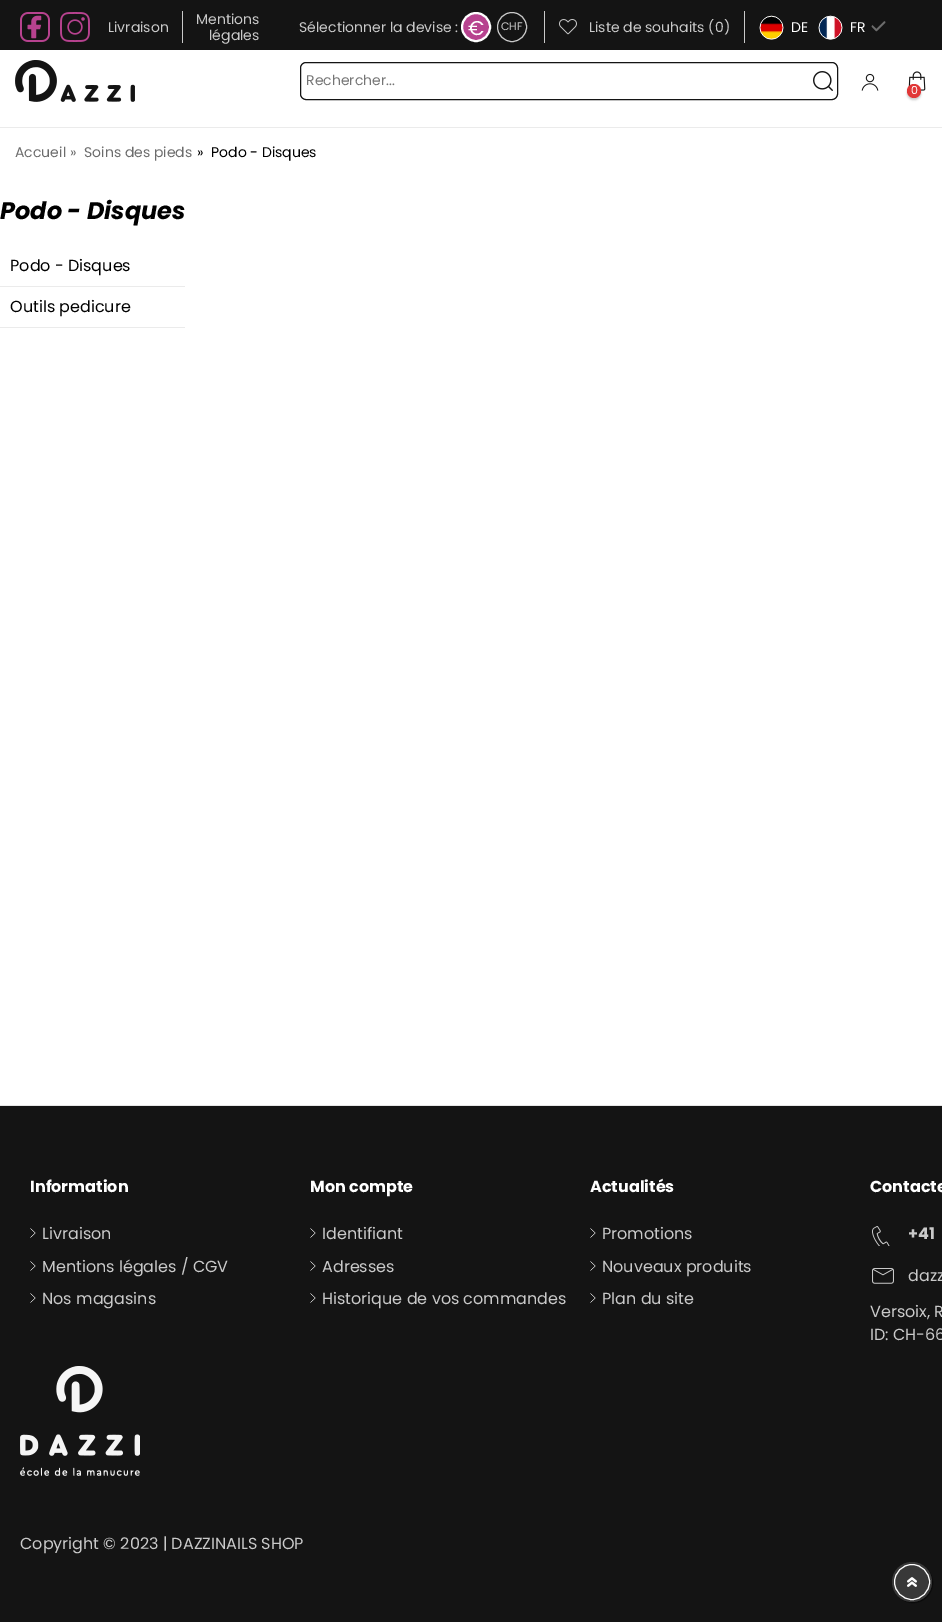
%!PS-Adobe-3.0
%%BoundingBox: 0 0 942 1622
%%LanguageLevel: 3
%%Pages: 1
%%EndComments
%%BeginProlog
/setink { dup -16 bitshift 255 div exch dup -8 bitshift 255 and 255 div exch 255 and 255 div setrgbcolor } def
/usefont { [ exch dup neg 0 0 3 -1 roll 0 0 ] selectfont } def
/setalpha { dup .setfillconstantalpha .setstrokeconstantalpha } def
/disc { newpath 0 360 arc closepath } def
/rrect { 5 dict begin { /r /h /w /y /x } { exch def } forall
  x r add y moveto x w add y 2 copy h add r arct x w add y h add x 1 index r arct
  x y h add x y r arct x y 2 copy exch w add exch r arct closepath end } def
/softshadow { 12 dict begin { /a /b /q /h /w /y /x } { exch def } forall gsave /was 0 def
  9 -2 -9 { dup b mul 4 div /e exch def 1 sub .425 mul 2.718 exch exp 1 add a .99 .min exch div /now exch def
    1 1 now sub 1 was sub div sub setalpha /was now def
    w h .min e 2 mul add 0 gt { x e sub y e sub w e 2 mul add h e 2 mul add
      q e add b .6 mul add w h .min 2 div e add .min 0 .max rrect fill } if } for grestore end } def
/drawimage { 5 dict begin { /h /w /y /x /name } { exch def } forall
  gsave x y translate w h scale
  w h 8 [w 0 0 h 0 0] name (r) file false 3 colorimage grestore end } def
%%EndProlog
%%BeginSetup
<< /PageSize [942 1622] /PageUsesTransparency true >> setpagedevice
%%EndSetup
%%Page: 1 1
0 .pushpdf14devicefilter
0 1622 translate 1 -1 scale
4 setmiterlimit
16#FFFFFF setink
0 0 942 1622 rectfill
16#141414 setink
0 0 942 50 rectfill
(img1.raw) 20 12 30 30 drawimage
(img2.raw) 60 12 30 30 drawimage
/Poppins-Regular 14 usefont
16#C9C9C9 setink
108 32 moveto (Livraison) show
182 11 1 32 rectfill
[
    [(Mentions) 196 24]
    [(légales) 209 40]
    [(Sélectionner la devise :) 299 32]
] { aload pop moveto show } forall
16#B7428F setink
476 27 14 disc gsave fill grestore
16#FFFFFF setink
2 setlinewidth
stroke
/Poppins-Regular 20 usefont
468 35 moveto (€) show
16#C9C9C9 setink
1 setlinewidth
512 27 14.5 disc stroke
/Poppins-Regular 11 usefont
501 30 moveto (CHF) show
544 11 1 32 rectfill
(img3.raw) 559 19 18 16 drawimage
/Poppins-Regular 14 usefont
589 32 moveto (Liste de souhaits \(0\)) show
744 11 1 32 rectfill
(img4.raw) 759 15 25 25 drawimage
16#FFFFFF setink
791 32 moveto (DE) show
(img5.raw) 818 15 25 25 drawimage
850 32 moveto (FR) show
(img6.raw) 871 21 15 11 drawimage
(img7.raw) 15 60 120 42 drawimage
16#141414 setink
300.5 62.5 537 37 5.5 rrect stroke
16#757575 setink
306 85 moveto (Rechercher...) show
(img8.raw) 813 71 20 20 drawimage
(img9.raw) 861 73 18 18 drawimage
(img10.raw) 908 71 18 20 drawimage
16#000000 setink
907 86 14 14 7 1 0.2 softshadow
16#E13737 setink
914 91 7 disc fill
/Poppins-Regular 11 usefont
16#FFFFFF setink
911 94 moveto (0) show
16#EBEBEB setink
0 127 942 1 rectfill
/Poppins-Regular 14 usefont
16#6C6C6C setink
[
    [(Accueil) 15 157]
    [(») 70 157]
    [(Soins des pieds) 84 157]
] { aload pop moveto show } forall
16#000000 setink
197 157 moveto (») show
211 157 moveto (Podo - Disques) show
/Poppins-BoldItalic 24 usefont
0 219 moveto (Podo - Disques) show
16#EBEBEB setink
0 286 185 1 rectfill
/Poppins-Regular 16 usefont
16#000000 setink
10 271 moveto (Podo - Disques) show
16#EBEBEB setink
0 327 185 1 rectfill
16#000000 setink
10 312 moveto (Outils pedicure) show
16#141414 setink
0 1106 942 516 rectfill
16#E6E6E6 setink
0 1105 942 1 rectfill
/Poppins-Bold 16 usefont
16#FFFFFF setink
30 1192 moveto (Information) show
(img11.raw) 30 1228 6 10 drawimage
/Poppins-Regular 16 usefont
16#C9C9C9 setink
42 1239 moveto (Livraison) show
(img11.raw) 30 1261 6 10 drawimage
42 1272 moveto (Mentions légales / CGV) show
(img11.raw) 30 1293 6 10 drawimage
42 1304 moveto (Nos magasins) show
/Poppins-Bold 16 usefont
16#FFFFFF setink
310 1192 moveto (Mon compte) show
(img11.raw) 310 1228 6 10 drawimage
/Poppins-Regular 16 usefont
16#C9C9C9 setink
322 1239 moveto (Identifiant) show
(img11.raw) 310 1261 6 10 drawimage
322 1272 moveto (Adresses) show
(img11.raw) 310 1293 6 10 drawimage
322 1304 moveto (Historique de vos commandes) show
/Poppins-Bold 16 usefont
16#FFFFFF setink
590 1192 moveto (Actualités) show
(img11.raw) 590 1228 6 10 drawimage
/Poppins-Regular 16 usefont
16#C9C9C9 setink
602 1239 moveto (Promotions) show
(img11.raw) 590 1261 6 10 drawimage
602 1272 moveto (Nouveaux produits) show
(img11.raw) 590 1293 6 10 drawimage
602 1304 moveto (Plan du site) show
/Poppins-Bold 16 usefont
16#FFFFFF setink
870 1192 moveto (Contacte) show
(img12.raw) 872 1226 18 20 drawimage
16#C9C9C9 setink
908 1239 moveto (+41) show
(img13.raw) 872 1268 22 16 drawimage
/Poppins-Regular 16 usefont
[
    [(dazz) 908 1281]
    [(Versoix, R) 870 1317]
    [(ID: CH-66) 870 1340]
] { aload pop moveto show } forall
(img14.raw) 20 1366 120 110 drawimage
20 1549 moveto (Copyright © 2023 | DAZZINAILS SHOP) show
16#000000 setink
893 1563 40 40 20 0.5 0.6 softshadow
16#383838 setink
912 1582 20 disc fill
(img15.raw) 907 1577 10 10 drawimage
16#FFFFFF setink
894.5 1582 moveto 894.5 1572.5 902.5 1564.5 912 1564.5 curveto 921.5 1564.5 929.5 1572.5 929.5 1582 curveto 929.5 1591.5 921.5 1599.5 912 1599.5 curveto 902.5 1599.5 894.5 1591.5 894.5 1582 curveto closepath stroke
.poppdf14devicefilter showpage
%%EOF
